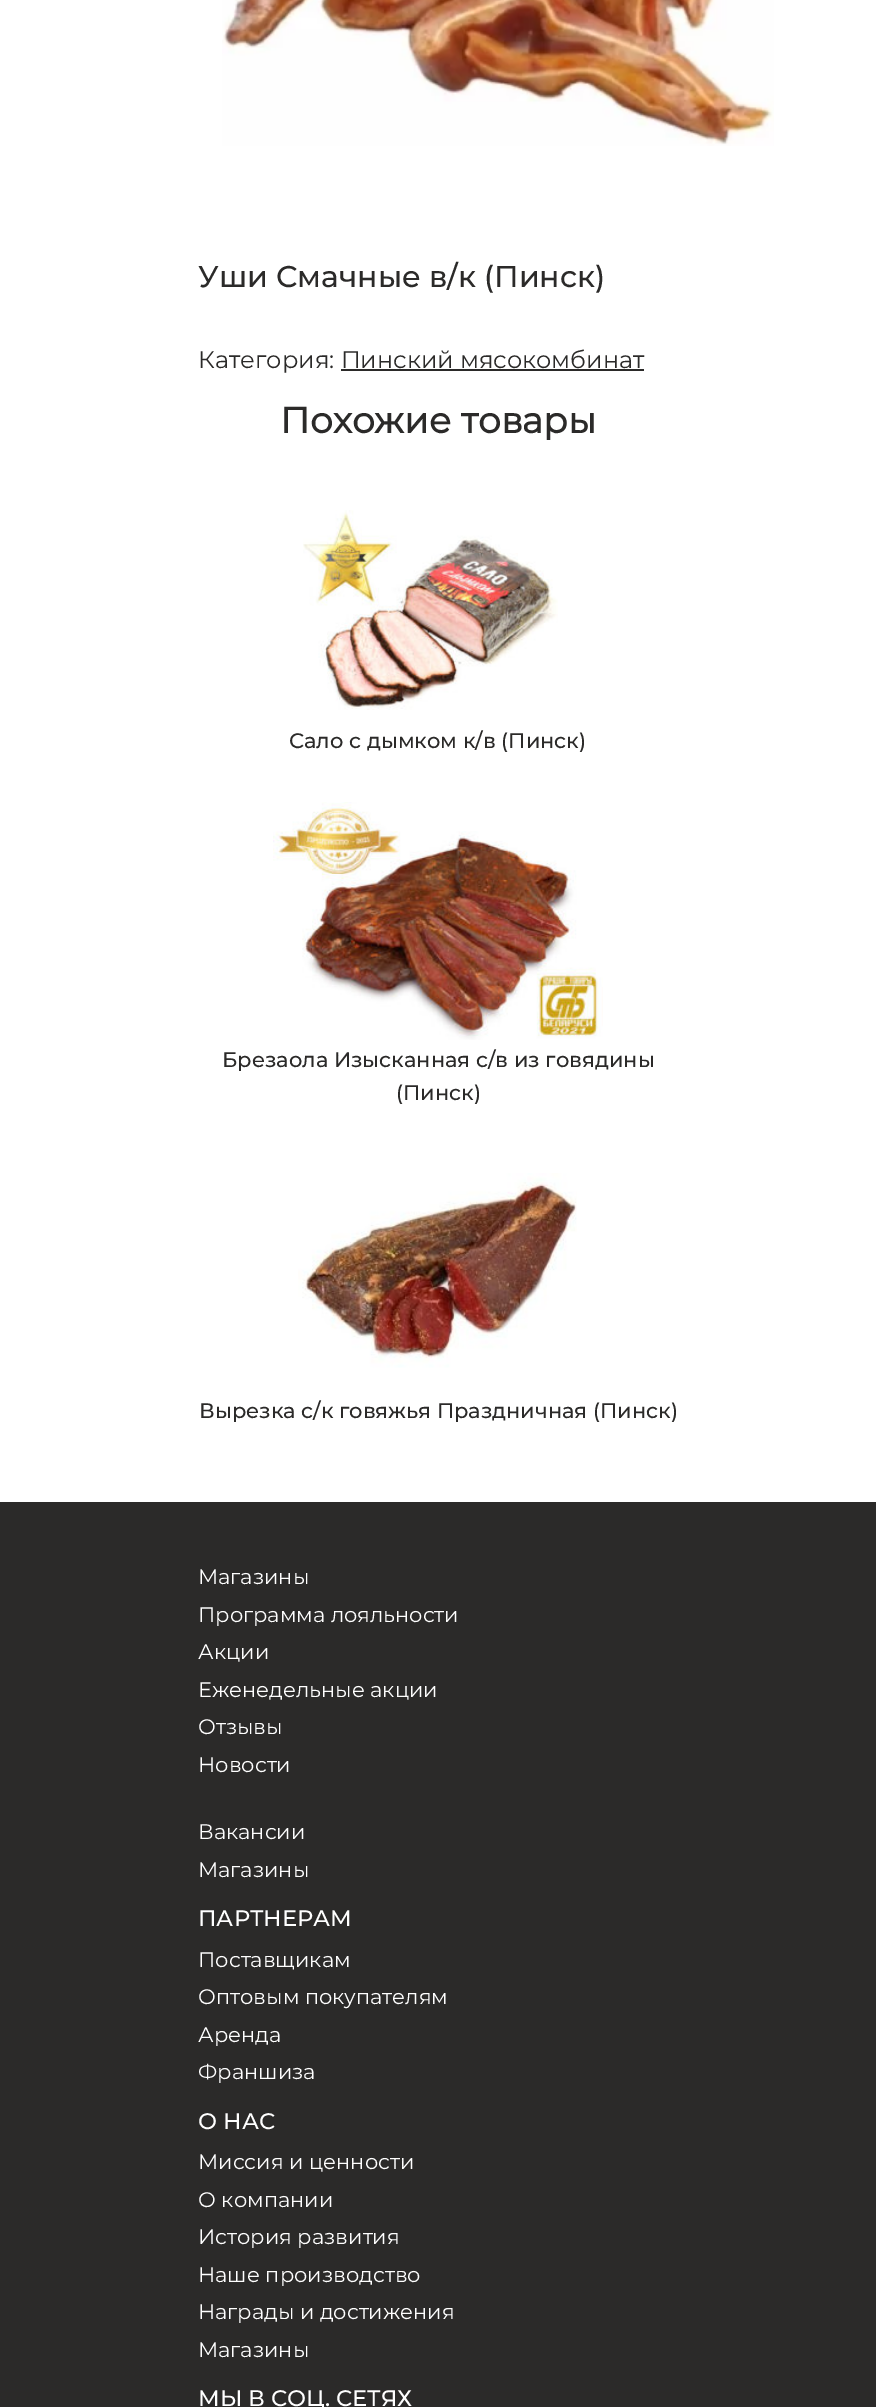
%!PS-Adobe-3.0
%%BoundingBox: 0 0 876 2407
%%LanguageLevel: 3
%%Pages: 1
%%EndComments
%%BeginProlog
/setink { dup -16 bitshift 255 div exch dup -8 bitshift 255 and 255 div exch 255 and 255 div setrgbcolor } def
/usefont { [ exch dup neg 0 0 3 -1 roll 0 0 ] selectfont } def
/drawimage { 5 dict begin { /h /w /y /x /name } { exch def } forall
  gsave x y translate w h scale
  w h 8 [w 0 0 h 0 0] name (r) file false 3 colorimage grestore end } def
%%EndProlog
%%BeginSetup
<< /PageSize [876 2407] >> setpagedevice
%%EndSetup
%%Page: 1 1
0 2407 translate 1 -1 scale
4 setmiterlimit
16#FFFFFF setink
0 0 876 2407 rectfill
(img1.raw) 222 0 552 146 drawimage
/Montserrat-Medium 30 usefont
16#2B2A29 setink
198 287 moveto (Уши Смачные в/к \(Пинск\)) show
/Montserrat-Regular 24 usefont
198 368 moveto (Категория: Пинский мясокомбинат) show
341 369 303 2 rectfill
/Montserrat-Bold 36 usefont
280 433 moveto (Похожие товары) show
(img2.raw) 303 510 255 200 drawimage
/Montserrat-Medium 21 usefont
289 748 moveto (Сало с дымком к/в \(Пинск\)) show
(img3.raw) 273 802 330 238 drawimage
222 1067 moveto (Брезаола Изысканная с/в из говядины) show
396 1100 moveto (\(Пинск\)) show
(img4.raw) 298 1173 279 195 drawimage
199 1418 moveto (Вырезка с/к говяжья Праздничная \(Пинск\)) show
0 1502 876 905 rectfill
/Montserrat-Regular 21 usefont
16#FFFFFF setink
[
    [(Магазины) 198 1584]
    [(Программа лояльности) 198 1622]
    [(Акции) 198 1659]
    [(Еженедельные акции) 198 1697]
    [(Отзывы) 198 1734]
    [(Новости) 198 1772]
    [(Вакансии) 198 1839]
    [(Магазины) 198 1877]
] { aload pop moveto show } forall
/Montserrat-Medium 22.5 usefont
198 1926 moveto (ПАРТНЕРАМ) show
/Montserrat-Regular 21 usefont
[
    [(Поставщикам) 198 1967]
    [(Оптовым покупателям) 198 2004]
    [(Аренда) 198 2042]
    [(Франшиза) 198 2079]
] { aload pop moveto show } forall
/Montserrat-Medium 22.5 usefont
198 2129 moveto (О НАС) show
/Montserrat-Regular 21 usefont
[
    [(Миссия и ценности) 198 2169]
    [(О компании) 198 2207]
    [(История развития) 198 2244]
    [(Наше производство) 198 2282]
    [(Награды и достижения) 198 2319]
    [(Магазины) 198 2357]
] { aload pop moveto show } forall
/Montserrat-Medium 22.5 usefont
198 2406 moveto (МЫ В СОЦ. СЕТЯХ) show
showpage
%%EOF
